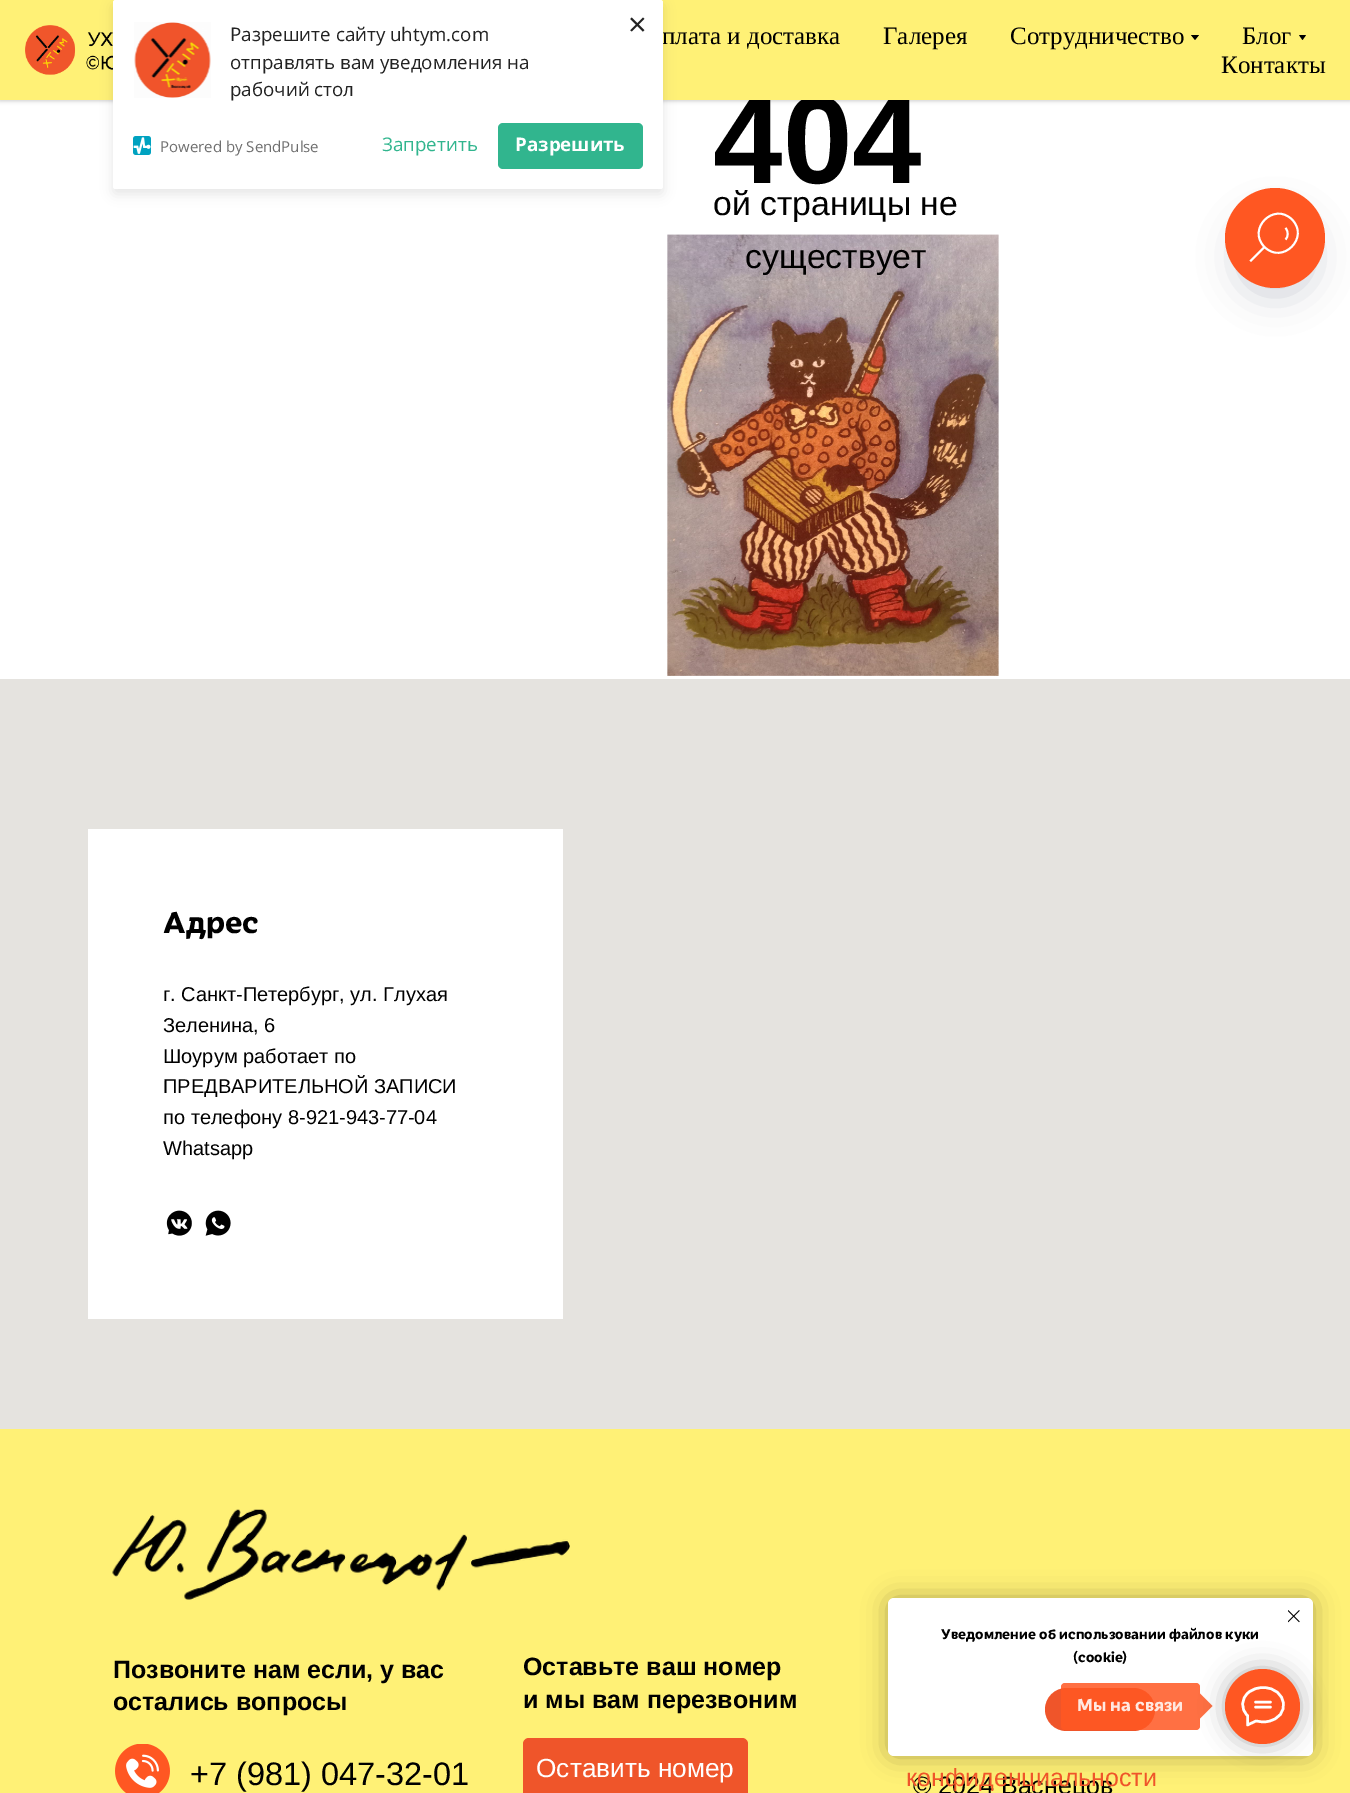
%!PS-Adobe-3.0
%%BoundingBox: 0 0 1350 1793
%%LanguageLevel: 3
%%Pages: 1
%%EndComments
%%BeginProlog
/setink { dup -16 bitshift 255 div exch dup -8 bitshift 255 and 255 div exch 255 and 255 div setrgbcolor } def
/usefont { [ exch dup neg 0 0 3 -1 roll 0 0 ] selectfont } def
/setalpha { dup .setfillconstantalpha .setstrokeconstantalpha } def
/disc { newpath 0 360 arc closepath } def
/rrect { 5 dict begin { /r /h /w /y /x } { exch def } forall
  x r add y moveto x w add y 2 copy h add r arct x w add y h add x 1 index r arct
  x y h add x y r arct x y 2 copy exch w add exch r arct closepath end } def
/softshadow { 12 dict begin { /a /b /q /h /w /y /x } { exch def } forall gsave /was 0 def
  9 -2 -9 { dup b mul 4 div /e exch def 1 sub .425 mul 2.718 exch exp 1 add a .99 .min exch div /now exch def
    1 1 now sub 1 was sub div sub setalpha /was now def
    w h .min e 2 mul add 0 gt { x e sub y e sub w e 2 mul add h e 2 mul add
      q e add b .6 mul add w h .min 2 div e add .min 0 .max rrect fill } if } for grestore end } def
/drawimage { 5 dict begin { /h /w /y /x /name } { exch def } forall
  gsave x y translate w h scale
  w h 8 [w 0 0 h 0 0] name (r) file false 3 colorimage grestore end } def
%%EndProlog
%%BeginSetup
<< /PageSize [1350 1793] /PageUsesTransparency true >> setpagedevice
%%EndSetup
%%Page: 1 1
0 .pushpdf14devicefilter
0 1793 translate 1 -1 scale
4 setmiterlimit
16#FFFFFF setink
0 0 1350 1793 rectfill
16#000000 setink
0 1 1350 100 0 2 0.2 softshadow
/LiberationSans-Bold 125 usefont
713 183 moveto (404) show
16#FFF176 setink
0 0 1350 100 rectfill
(img3.raw) 25 25 88 50 drawimage
16#000000 setink
113 5 550 189 2.5 6 0.1 softshadow
/LiberationSerif-Regular 25 usefont
662 44 moveto (плата и доставка) show
16#FFFFFF setink
113 0 550 189 2.5 rrect fill
/OpenSans-Regular 32.5 usefont
16#222222 setink
628 36 moveto (×) show
(img1.raw) 134 22 77 76 drawimage
/OpenSans-Regular 18.75 usefont
[
    [(Разрешите сайту uhtym.com) 230 41]
    [(отправлять вам уведомления на) 230 69]
    [(рабочий стол) 230 96]
] { aload pop moveto show } forall
(img2.raw) 133 136 18 19 drawimage
/OpenSans-Regular 15 usefont
16#6F6F6F setink
160 152 moveto (Powered by SendPulse) show
/OpenSans-Regular 18.75 usefont
16#31B58E setink
382 151 moveto (Запретить) show
498 123 145 46 5 rrect fill
/OpenSans-Bold 18.75 usefont
16#FFFFFF setink
515 151 moveto (Разрешить) show
/LiberationSerif-Regular 25 usefont
16#000000 setink
883 44 moveto (Галерея) show
1010 44 moveto (Сотрудничество) show
1191 35 moveto 1199 35 lineto 1195 40 lineto closepath fill
1242 44 moveto (Блог) show
1299 35 moveto 1306 35 lineto 1302.5 40 lineto closepath fill
1221 73 moveto (Контакты) show
/LiberationSans-Regular 33.75 usefont
713 215 moveto (ой страницы не) show
(img4.raw) 667 234 332 442 drawimage
745 268 moveto (существует) show
16#000B30 setink
1238 219 75 75 37.5 19 0.2 softshadow
16#FF5722 setink
1275 238 50 disc fill
16#FFFFFF setink
1.9 setlinewidth
2 setlinecap
1264 247.5 moveto 1251 260.5 lineto stroke
0 setlinecap
1292 219.5 moveto 1310 237.5 1282.5 265 1264.5 247 curveto 1246.5 229 1274 201.5 1292 219.5 curveto closepath 1285.5 228 moveto 1288.5 231.5 1288.5 236.5 1285.5 239.5 curveto stroke
16#E5E3DF setink
0 679 1350 750 rectfill
16#FFFFFF setink
88 829 475 490 rectfill
/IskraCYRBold-Bold 32.5 usefont
16#000000 setink
163 933 moveto (Адрес) show
/LiberationSans-Regular 20 usefont
[
    [(г. Санкт-Петербург, ул. Глухая) 163 1001]
    [(Зеленина, 6) 163 1032]
    [(Шоурум работает по) 163 1063]
    [(ПРЕДВАРИТЕЛЬНОЙ ЗАПИСИ) 163 1093]
    [(по телефону 8-921-943-77-04) 163 1124]
    [(Whatsapp) 163 1155]
] { aload pop moveto show } forall
(img5.raw) 166 1210 26 26 drawimage
(img6.raw) 205 1210 26 26 drawimage
16#FFF176 setink
0 1429 1350 364 rectfill
16#000000 setink
888 1598 425 158 6 12.5 0.3 softshadow
16#FFFFFF setink
888 1598 425 158 6 rrect fill
(img7.raw) 1288 1610 12 13 drawimage
/IskraCYRBold-Bold 15 usefont
16#000000 setink
941 1639 moveto (Уведомление об использовании файлов куки) show
1073 1662 moveto (\(cookie\)) show
16#EF552A setink
1045 1688 110 43 21.5 rrect fill
(img8.raw) 112 1509 458 91 drawimage
/LiberationSans-Bold 25 usefont
16#000000 setink
[
    [(Позвоните нам если, у вас) 113 1678]
    [(остались вопросы) 113 1710]
    [(Оставьте ваш номер) 523 1675]
    [(и мы вам перезвоним) 523 1708]
] { aload pop moveto show } forall
(img9.raw) 115 1744 55 49 drawimage
/LiberationSans-Regular 32.5 usefont
190 1785 moveto (+7 \(981\) 047-32-01) show
16#EF552A setink
523 1738 225 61 6 rrect fill
/LiberationSans-Regular 26.25 usefont
16#FFFFFF setink
536 1777 moveto (Оставить номер) show
/LiberationSans-Regular 25 usefont
16#000000 setink
913 1794 moveto (© 2024 Васнецов) show
16#EF552A setink
906 1786 moveto (конфиденциальности) show
0.85 setalpha
16#FF5722 setink
1061 1683 139 47 4 rrect fill
/IskraCYRBold-Bold 18.75 usefont
1 setalpha
16#FFE8E0 setink
1077 1711 moveto (Мы на связи) show
16#FF7043 setink
1200 1718.5 moveto 1200 1693.5 lineto 1212.5 1706 lineto closepath fill
16#000000 setink
1225 1669 75 75 37.5 12.5 0.3 softshadow
16#FF5722 setink
1262.5 1706.5 37.5 disc fill
16#FFFFFF setink
2.5 setlinewidth
1 setlinecap
1 setlinejoin
1255.5 1702 moveto 1270.5 1702 lineto 1255.5 1707 moveto 1270.5 1707 lineto 1247.5 1715.5 moveto 1240.5 1709 1241 1698.5 1248.5 1692.5 curveto 1252.5 1689 1258 1687.5 1263 1687.5 curveto 1287.5 1687.5 1291.5 1717.5 1267.5 1721.5 curveto 1263 1722.5 1260 1721.5 1256 1721 curveto 1247.5 1725 lineto closepath stroke
.poppdf14devicefilter showpage
%%EOF
